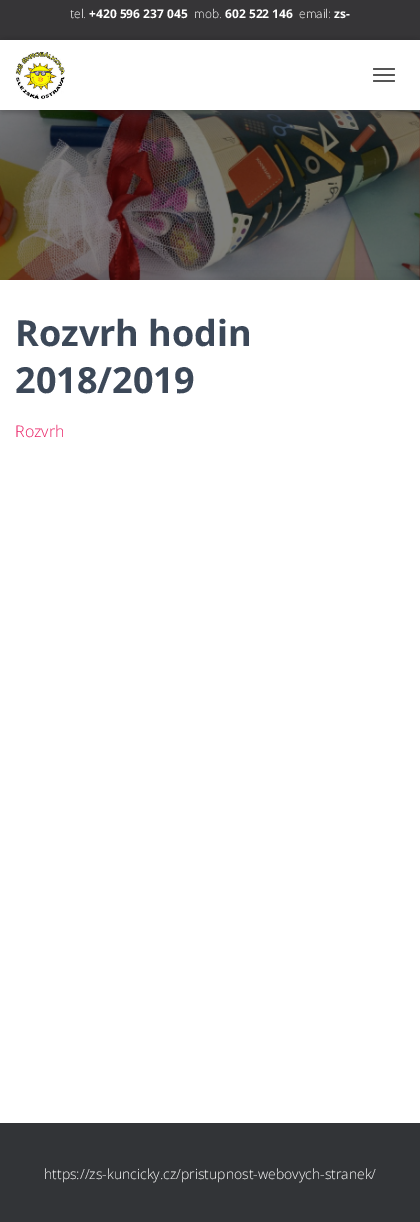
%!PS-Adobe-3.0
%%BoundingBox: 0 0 420 1222
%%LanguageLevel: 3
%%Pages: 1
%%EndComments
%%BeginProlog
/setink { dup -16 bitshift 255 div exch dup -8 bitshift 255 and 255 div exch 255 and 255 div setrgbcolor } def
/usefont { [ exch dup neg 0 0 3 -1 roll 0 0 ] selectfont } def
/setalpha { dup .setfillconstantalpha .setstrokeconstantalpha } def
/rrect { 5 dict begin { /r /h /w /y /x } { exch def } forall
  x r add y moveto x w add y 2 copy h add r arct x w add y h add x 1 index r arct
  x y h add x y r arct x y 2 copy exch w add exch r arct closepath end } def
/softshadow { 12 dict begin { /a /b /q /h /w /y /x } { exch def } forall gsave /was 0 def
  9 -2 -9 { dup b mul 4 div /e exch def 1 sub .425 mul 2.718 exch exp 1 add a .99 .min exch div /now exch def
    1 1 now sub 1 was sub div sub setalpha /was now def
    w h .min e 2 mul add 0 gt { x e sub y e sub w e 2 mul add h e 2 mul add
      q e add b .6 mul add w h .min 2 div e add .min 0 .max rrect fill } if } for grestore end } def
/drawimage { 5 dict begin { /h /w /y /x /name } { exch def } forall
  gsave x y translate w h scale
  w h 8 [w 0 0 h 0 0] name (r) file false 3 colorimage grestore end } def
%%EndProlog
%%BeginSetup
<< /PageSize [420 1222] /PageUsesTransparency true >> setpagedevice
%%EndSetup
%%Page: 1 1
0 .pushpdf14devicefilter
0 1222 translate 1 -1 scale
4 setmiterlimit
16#FFFFFF setink
0 0 420 1222 rectfill
(img1.raw) 419 110 1 170 drawimage
16#363537 setink
0 0 420 40 rectfill
/OpenSans-Light 12 usefont
16#FFFFFF setink
70 18 moveto (tel.) show
/OpenSans-Bold 12 usefont
89 18 moveto (+420 596 237 045) show
/OpenSans-Light 12 usefont
194 18 moveto (mob.) show
/OpenSans-Bold 12 usefont
225 18 moveto (602 522 146) show
/OpenSans-Light 12 usefont
299 18 moveto (email:) show
/OpenSans-Bold 12 usefont
334 18 moveto (zs-) show
(img3.raw) 0 110 420 170 drawimage
0.5 setalpha
16#000000 setink
0 110 420 170 rectfill
1 setalpha
2 46 416 66 0 2.5 0.1 softshadow
0 41 420 70 0 5 0.12 softshadow
6 47 408 58 0 5 0.42 softshadow
16#FFFFFF setink
0 40 420 70 rectfill
(img2.raw) 15 51 50 49 drawimage
16#555555 setink
373 68 22 2 1 rrect fill
373 74 22 2 1 rrect fill
373 80 22 2 1 rrect fill
16#000000 setink
-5 281 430 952 0 15 0.12 softshadow
16#FFFFFF setink
0 280 420 843 rectfill
/OpenSans-Bold 36 usefont
16#3C4858 setink
15 346 moveto (Rozvrh hodin) show
15 393 moveto (2018/2019) show
/OpenSans-Light 16 usefont
16#E91E63 setink
15 437 moveto (Rozvrh) show
16#323437 setink
0 1123 420 99 rectfill
/OpenSans-Light 14 usefont
16#FFFFFF setink
44 1179 moveto (https://zs-kuncicky.cz/pristupnost-webovych-stranek/) show
.poppdf14devicefilter showpage
%%EOF
